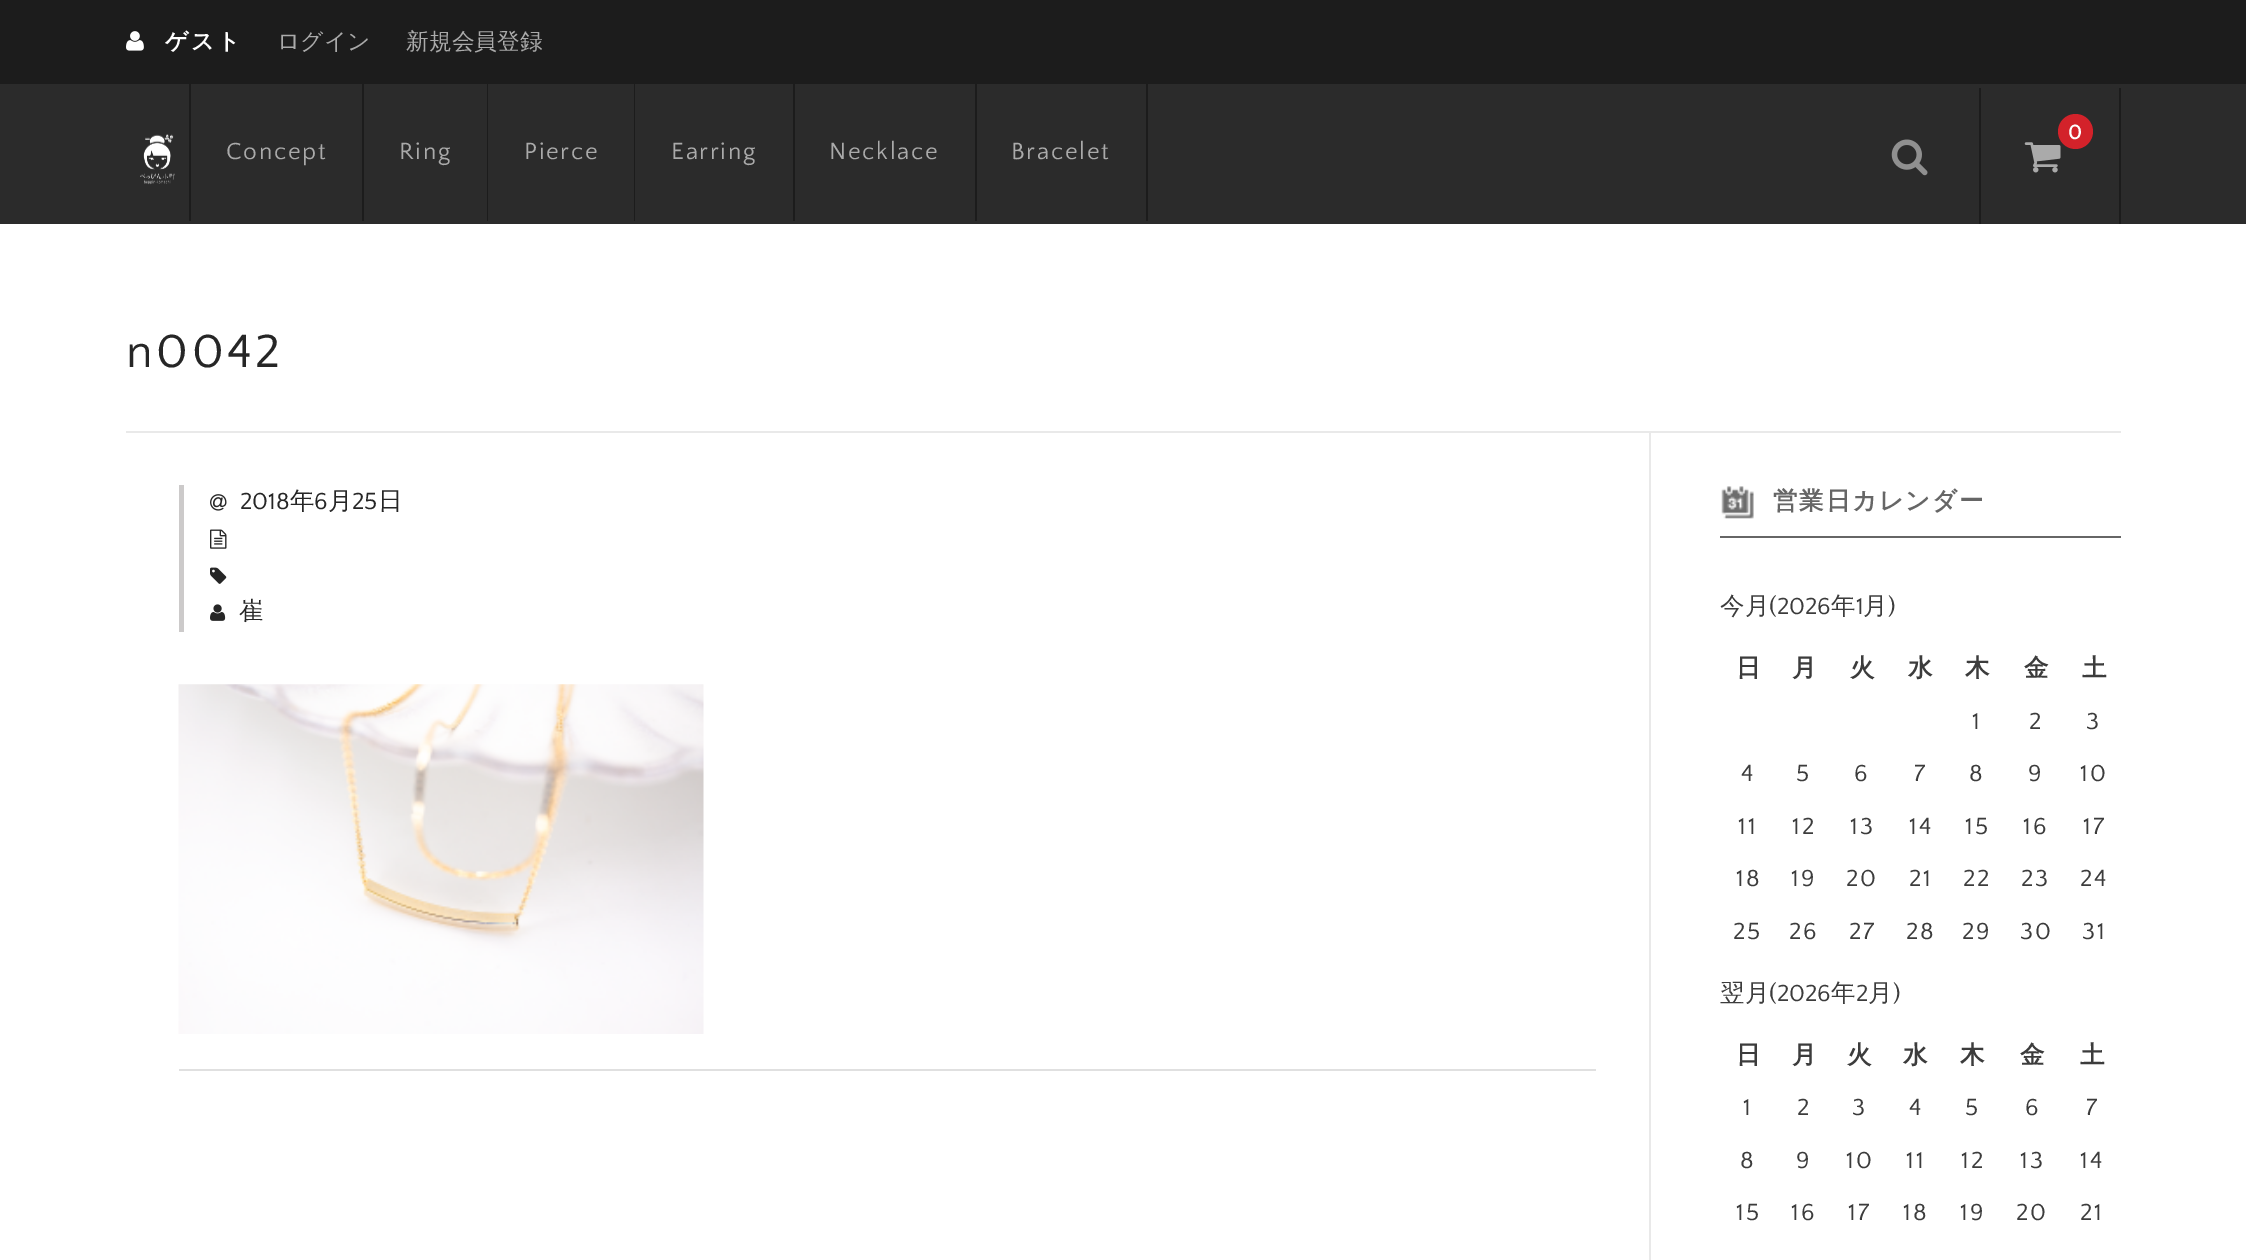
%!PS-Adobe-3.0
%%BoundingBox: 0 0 2246 1260
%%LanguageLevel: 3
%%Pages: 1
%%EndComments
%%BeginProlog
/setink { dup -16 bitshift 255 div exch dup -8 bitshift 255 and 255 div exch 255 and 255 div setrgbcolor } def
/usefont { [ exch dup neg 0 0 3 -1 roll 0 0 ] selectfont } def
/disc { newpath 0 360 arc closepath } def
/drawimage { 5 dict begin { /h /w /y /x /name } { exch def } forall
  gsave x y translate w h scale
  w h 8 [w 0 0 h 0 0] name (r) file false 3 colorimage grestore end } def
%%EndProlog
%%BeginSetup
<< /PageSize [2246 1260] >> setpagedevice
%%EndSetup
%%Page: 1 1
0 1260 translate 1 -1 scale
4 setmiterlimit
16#FFFFFF setink
0 0 2246 1260 rectfill
16#2B2B2B setink
0 84 2246 140 rectfill
16#1C1C1C setink
0 0 2246 84 rectfill
(img1.raw) 140 134 35 51 drawimage
(img2.raw) 126 31 18 20 drawimage
/WenQuanYiZenHei-Bold 22.75 usefont
16#FFFFFF setink
165 49 moveto 2.5 0 (ゲスト) ashow
/WenQuanYiZenHei-Medium 22.75 usefont
16#AAAAAA setink
277 49 moveto (ログイン) show
406 49 moveto (新規会員登録) show
16#1C1C1C setink
1979 88 2 136 rectfill
(img3.raw) 1891 139 37 37 drawimage
2119 88 2 136 rectfill
(img4.raw) 2024 142 37 31 drawimage
16#D3222A setink
2075.5 131.5 17.5 disc fill
/QuattrocentoSans-Bold 21 usefont
16#FFFFFF setink
2068 139 moveto 1.75 0 (0) ashow
16#1C1C1C setink
362 84 2 137 rectfill
189 84 2 137 rectfill
/QuattrocentoSans-Regular 24.5 usefont
16#AAAAAA setink
226 159 moveto 1.75 0 (Concept) ashow
16#1C1C1C setink
487 84 1 137 rectfill
16#AAAAAA setink
399 159 moveto 1.75 0 (Ring) ashow
16#1C1C1C setink
634 84 1 137 rectfill
16#AAAAAA setink
524 159 moveto 1.75 0 (Pierce) ashow
16#1C1C1C setink
793 84 2 137 rectfill
16#AAAAAA setink
671 159 moveto 1.75 0 (Earring) ashow
16#1C1C1C setink
975 84 2 137 rectfill
16#AAAAAA setink
829 159 moveto 1.75 0 (Necklace) ashow
16#1C1C1C setink
1146 84 2 137 rectfill
16#AAAAAA setink
1011 159 moveto 1.75 0 (Bracelet) ashow
16#E9E9E9 setink
126 431 1995 2 rectfill
/QuattrocentoSans-Regular 49 usefont
16#262626 setink
126 367 moveto 3.5 0 (n0042) ashow
16#CCCACA setink
179 485 5 147 rectfill
(img5.raw) 210 494 17 17 drawimage
/QuattrocentoSans-Regular 24.5 usefont
16#262626 setink
240 509 moveto (2018) show
/WenQuanYiZenHei-Medium 24.5 usefont
290 509 moveto (年) show
/QuattrocentoSans-Regular 24.5 usefont
314 509 moveto (6) show
/WenQuanYiZenHei-Medium 24.5 usefont
328 509 moveto (月) show
/QuattrocentoSans-Regular 24.5 usefont
352 509 moveto (25) show
/WenQuanYiZenHei-Medium 24.5 usefont
378 509 moveto (日) show
(img6.raw) 210 529 17 20 drawimage
(img7.raw) 210 567 17 17 drawimage
(img8.raw) 210 604 16 17 drawimage
239 619 moveto (崔) show
(img9.raw) 178 684 526 350 drawimage
16#E0E0E0 setink
179 1069 1417 2 rectfill
16#E9E9E9 setink
1649 432 2 828 rectfill
(img10.raw) 1721 486 33 33 drawimage
/WenQuanYiZenHei-Bold 24.5 usefont
16#666666 setink
1773 509 moveto 1.75 0 (営業日カレンダー) ashow
1720 536 401 2 rectfill
/WenQuanYiZenHei-Medium 24.5 usefont
16#3C3C3C setink
1720 614 moveto (今月) show
/QuattrocentoSans-Regular 24.5 usefont
1769 614 moveto (\(2026) show
/WenQuanYiZenHei-Medium 24.5 usefont
1831 614 moveto (年) show
/QuattrocentoSans-Regular 24.5 usefont
1856 614 moveto (1) show
/WenQuanYiZenHei-Medium 24.5 usefont
1863 614 moveto (月) show
/QuattrocentoSans-Regular 24.5 usefont
1888 614 moveto (\)) show
/WenQuanYiZenHei-Bold 24.5 usefont
[
    [(日) 1736 676]
    [(月) 1792 676]
    [(火) 1850 676]
    [(水) 1908 676]
    [(木) 1965 676]
    [(金) 2024 676]
    [(土) 2082 676]
] { aload pop moveto show } forall
/QuattrocentoSans-Regular 24.5 usefont
1972 729 moveto 1.75 0 (1) ashow
2029 729 moveto 1.75 0 (2) ashow
2086 729 moveto 1.75 0 (3) ashow
1741 781 moveto 1.75 0 (4) ashow
1796 781 moveto 1.75 0 (5) ashow
1854 781 moveto 1.75 0 (6) ashow
1914 781 moveto 1.75 0 (7) ashow
1969 781 moveto 1.75 0 (8) ashow
2028 781 moveto 1.75 0 (9) ashow
2080 781 moveto 1.75 0 (10) ashow
1738 834 moveto 1.75 0 (11) ashow
1792 834 moveto 1.75 0 (12) ashow
1850 834 moveto 1.75 0 (13) ashow
1909 834 moveto 1.75 0 (14) ashow
1965 834 moveto 1.75 0 (15) ashow
2023 834 moveto 1.75 0 (16) ashow
2083 834 moveto 1.75 0 (17) ashow
1736 886 moveto 1.75 0 (18) ashow
1791 886 moveto 1.75 0 (19) ashow
1846 886 moveto 1.75 0 (20) ashow
1909 886 moveto 1.75 0 (21) ashow
1963 886 moveto 1.75 0 (22) ashow
2021 886 moveto 1.75 0 (23) ashow
2080 886 moveto 1.75 0 (24) ashow
1733 939 moveto 1.75 0 (25) ashow
1789 939 moveto 1.75 0 (26) ashow
1849 939 moveto 1.75 0 (27) ashow
1906 939 moveto 1.75 0 (28) ashow
1962 939 moveto 1.75 0 (29) ashow
2020 939 moveto 1.75 0 (30) ashow
2082 939 moveto 1.75 0 (31) ashow
/WenQuanYiZenHei-Medium 24.5 usefont
1720 1001 moveto (翌月) show
/QuattrocentoSans-Regular 24.5 usefont
1769 1001 moveto (\(2026) show
/WenQuanYiZenHei-Medium 24.5 usefont
1831 1001 moveto (年) show
/QuattrocentoSans-Regular 24.5 usefont
1856 1001 moveto (2) show
/WenQuanYiZenHei-Medium 24.5 usefont
1868 1001 moveto (月) show
/QuattrocentoSans-Regular 24.5 usefont
1893 1001 moveto (\)) show
/WenQuanYiZenHei-Bold 24.5 usefont
[
    [(日) 1736 1063]
    [(月) 1792 1063]
    [(火) 1847 1063]
    [(水) 1903 1063]
    [(木) 1960 1063]
    [(金) 2020 1063]
    [(土) 2080 1063]
] { aload pop moveto show } forall
/QuattrocentoSans-Regular 24.5 usefont
1743 1115 moveto 1.75 0 (1) ashow
1797 1115 moveto 1.75 0 (2) ashow
1852 1115 moveto 1.75 0 (3) ashow
1909 1115 moveto 1.75 0 (4) ashow
1965 1115 moveto 1.75 0 (5) ashow
2025 1115 moveto 1.75 0 (6) ashow
2086 1115 moveto 1.75 0 (7) ashow
1740 1168 moveto 1.75 0 (8) ashow
1796 1168 moveto 1.75 0 (9) ashow
1846 1168 moveto 1.75 0 (10) ashow
1906 1168 moveto 1.75 0 (11) ashow
1961 1168 moveto 1.75 0 (12) ashow
2020 1168 moveto 1.75 0 (13) ashow
2080 1168 moveto 1.75 0 (14) ashow
1736 1220 moveto 1.75 0 (15) ashow
1791 1220 moveto 1.75 0 (16) ashow
1848 1220 moveto 1.75 0 (17) ashow
1903 1220 moveto 1.75 0 (18) ashow
1960 1220 moveto 1.75 0 (19) ashow
2016 1220 moveto 1.75 0 (20) ashow
2080 1220 moveto 1.75 0 (21) ashow
showpage
%%EOF
